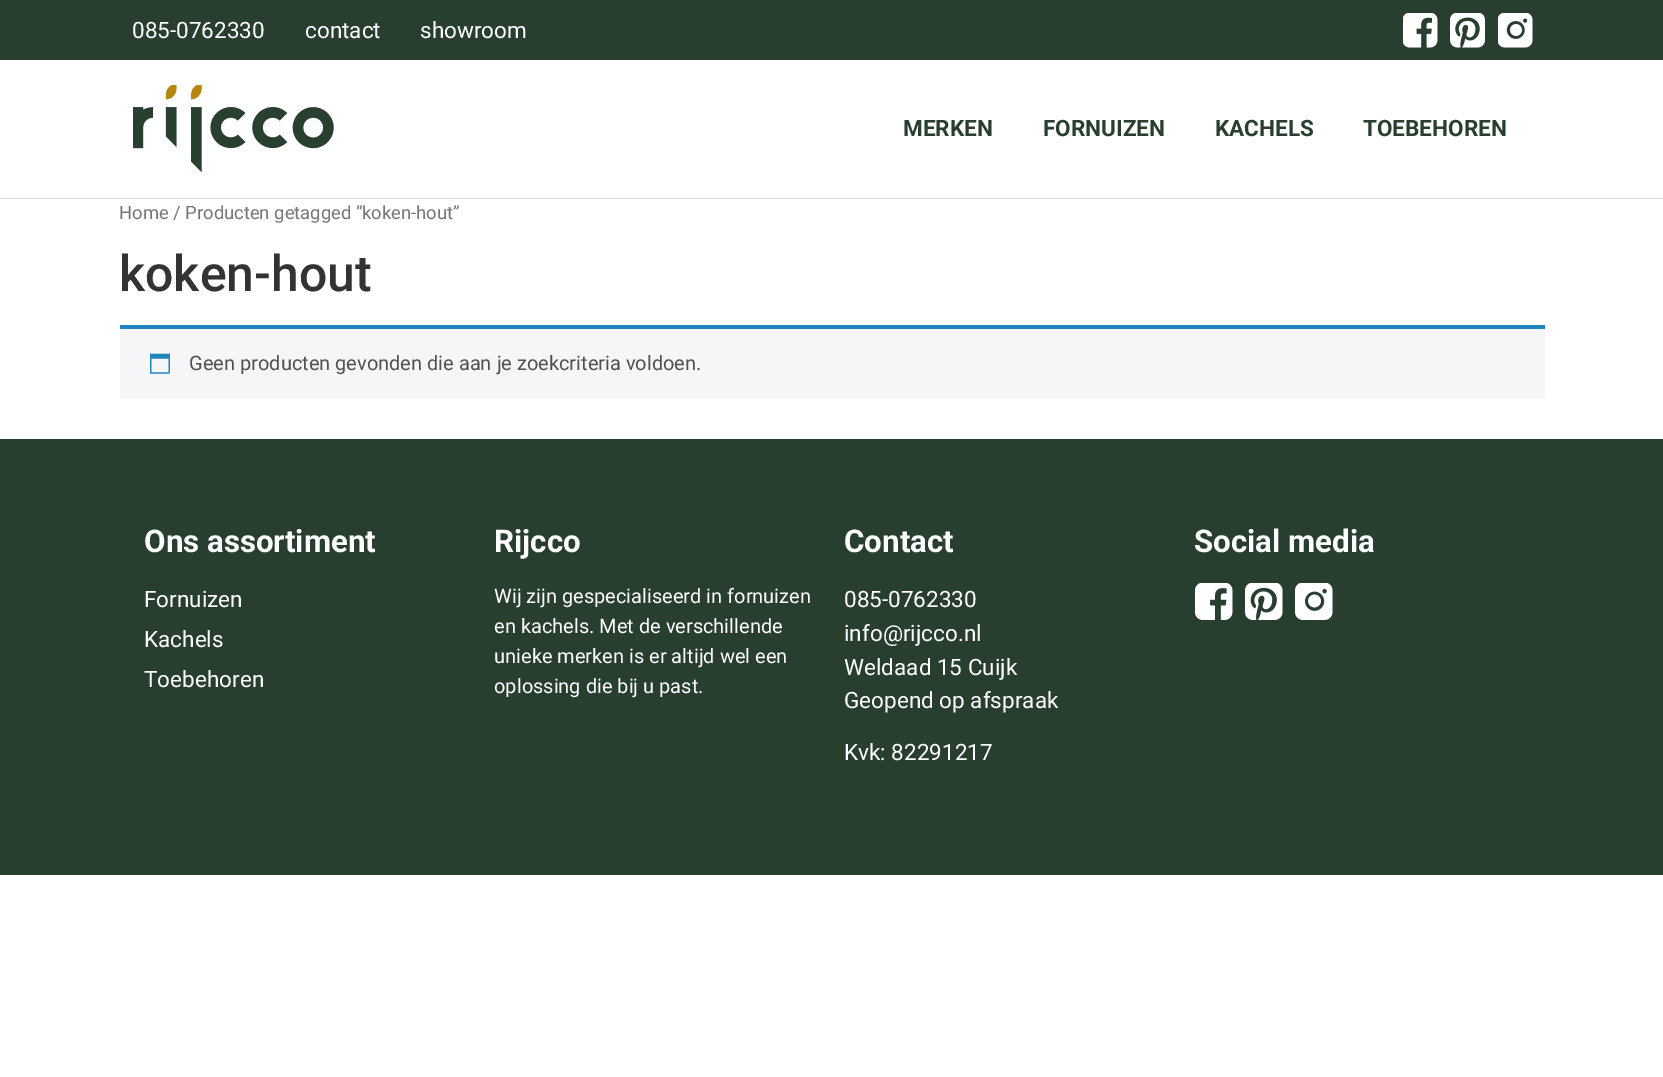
%!PS-Adobe-3.0
%%BoundingBox: 0 0 1663 1077
%%LanguageLevel: 3
%%Pages: 1
%%EndComments
%%BeginProlog
/setink { dup -16 bitshift 255 div exch dup -8 bitshift 255 and 255 div exch 255 and 255 div setrgbcolor } def
/usefont { [ exch dup neg 0 0 3 -1 roll 0 0 ] selectfont } def
/drawimage { 5 dict begin { /h /w /y /x /name } { exch def } forall
  gsave x y translate w h scale
  w h 8 [w 0 0 h 0 0] name (r) file false 3 colorimage grestore end } def
%%EndProlog
%%BeginSetup
<< /PageSize [1663 1077] >> setpagedevice
%%EndSetup
%%Page: 1 1
0 1077 translate 1 -1 scale
4 setmiterlimit
16#FFFFFF setink
0 0 1663 1077 rectfill
16#283F30 setink
0 0 1663 60 rectfill
/Roboto-Regular 22.5 usefont
16#FFFFFF setink
[
    [(085-0762330) 132 38]
    [(contact) 305 38]
    [(showroom) 420 38]
] { aload pop moveto show } forall
(img1.raw) 1403 13 35 35 drawimage
(img2.raw) 1450 13 35 35 drawimage
(img3.raw) 1498 13 35 35 drawimage
16#D8D8D8 setink
0 198 1663 1 rectfill
(img4.raw) 133 85 201 88 drawimage
/Roboto-Bold 22.5 usefont
16#283F30 setink
[
    [(MERKEN) 903 136]
    [(FORNUIZEN) 1043 136]
    [(KACHELS) 1215 136]
    [(TOEBEHOREN) 1363 136]
] { aload pop moveto show } forall
/Roboto-Regular 18.4 usefont
16#767676 setink
119 219 moveto (Home / Producten getagged “koken-hout”) show
/Roboto-Medium 50 usefont
16#333333 setink
119 291 moveto (koken-hout) show
16#F6F5F8 setink
120 329 1425 70 rectfill
16#1E85BE setink
120 325 1425 4 rectfill
(img5.raw) 150 353 20 21 drawimage
/Roboto-Regular 20 usefont
16#515151 setink
189 370 moveto (Geen producten gevonden die aan je zoekcriteria voldoen.) show
16#283F30 setink
0 439 1663 436 rectfill
/Roboto-Bold 31.25 usefont
16#FFFFFF setink
144 552 moveto (Ons assortiment) show
/Roboto-Regular 22.5 usefont
[
    [(Fornuizen) 144 607]
    [(Kachels) 144 647]
    [(Toebehoren) 144 687]
] { aload pop moveto show } forall
/Roboto-Bold 31.25 usefont
494 552 moveto (Rijcco) show
/Roboto-Regular 20 usefont
[
    [(Wij zijn gespecialiseerd in fornuizen) 494 603]
    [(en kachels. Met de verschillende) 494 633]
    [(unieke merken is er altijd wel een) 494 663]
    [(oplossing die bij u past.) 494 693]
] { aload pop moveto show } forall
/Roboto-Bold 31.25 usefont
844 552 moveto (Contact) show
/Roboto-Regular 22.5 usefont
[
    [(085-0762330) 844 607]
    [(info@rijcco.nl) 844 641]
    [(Weldaad 15 Cuijk) 844 675]
    [(Geopend op afspraak) 844 708]
    [(Kvk: 82291217) 844 760]
] { aload pop moveto show } forall
/Roboto-Bold 31.25 usefont
1194 552 moveto (Social media) show
(img6.raw) 1195 583 38 37 drawimage
(img7.raw) 1245 583 38 37 drawimage
(img8.raw) 1295 583 38 37 drawimage
showpage
%%EOF
